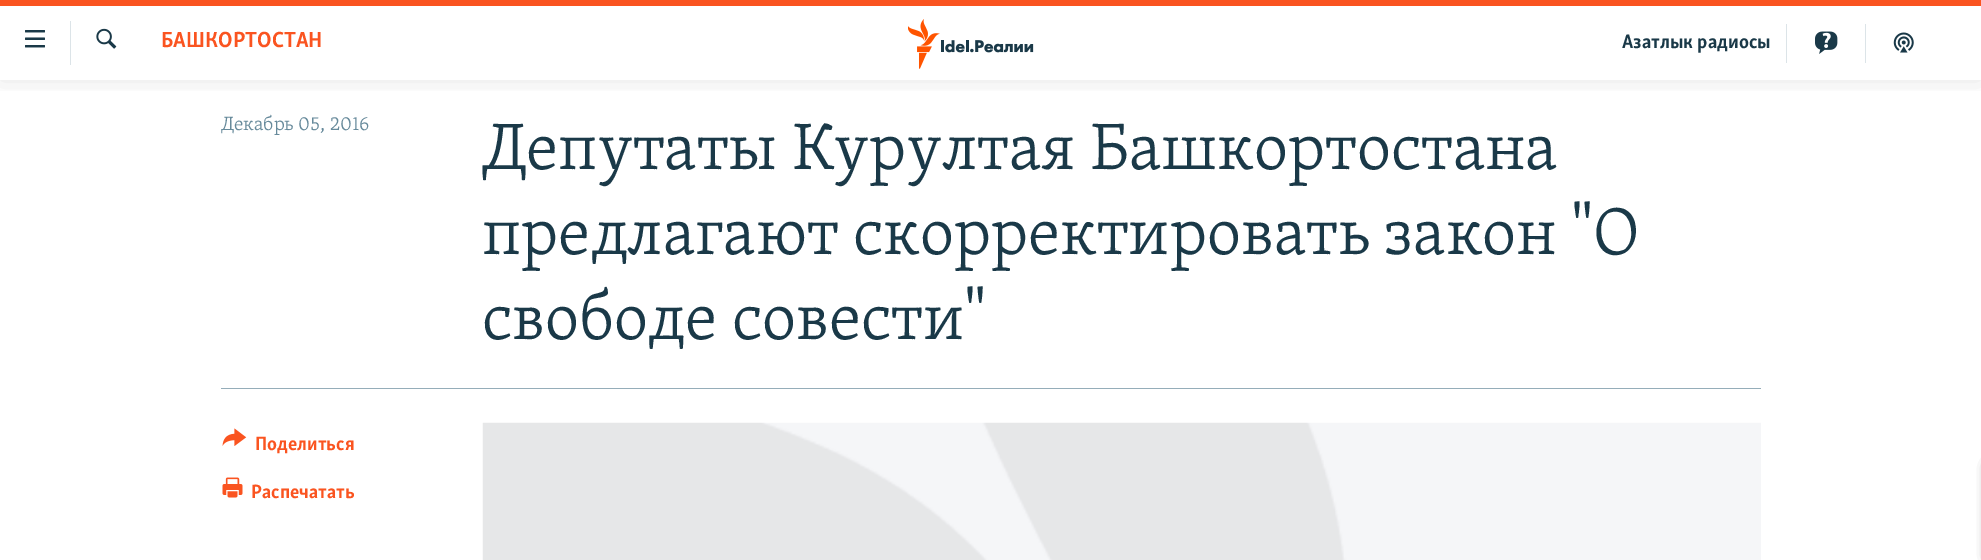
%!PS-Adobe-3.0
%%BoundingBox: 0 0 1981 560
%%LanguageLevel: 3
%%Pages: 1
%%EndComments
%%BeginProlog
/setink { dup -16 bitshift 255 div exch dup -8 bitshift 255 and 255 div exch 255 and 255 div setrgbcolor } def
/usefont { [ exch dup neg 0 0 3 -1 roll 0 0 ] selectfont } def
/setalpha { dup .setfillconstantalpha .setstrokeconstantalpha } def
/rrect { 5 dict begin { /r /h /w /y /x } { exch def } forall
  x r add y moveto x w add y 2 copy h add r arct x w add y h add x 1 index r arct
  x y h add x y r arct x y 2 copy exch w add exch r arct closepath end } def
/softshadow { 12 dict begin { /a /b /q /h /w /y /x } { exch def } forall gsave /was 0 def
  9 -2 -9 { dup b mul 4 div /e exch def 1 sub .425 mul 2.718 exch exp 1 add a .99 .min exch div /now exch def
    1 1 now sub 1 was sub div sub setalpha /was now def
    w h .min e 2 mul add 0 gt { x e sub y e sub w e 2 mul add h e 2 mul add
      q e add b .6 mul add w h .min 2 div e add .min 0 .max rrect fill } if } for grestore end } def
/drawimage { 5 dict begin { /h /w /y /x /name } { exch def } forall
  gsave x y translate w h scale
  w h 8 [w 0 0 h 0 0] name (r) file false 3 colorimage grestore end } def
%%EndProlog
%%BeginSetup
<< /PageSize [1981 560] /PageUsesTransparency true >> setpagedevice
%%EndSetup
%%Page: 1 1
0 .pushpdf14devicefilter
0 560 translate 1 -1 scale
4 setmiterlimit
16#FFFFFF setink
0 0 1981 560 rectfill
gsave
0 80 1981 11 rectclip
16#000000 setink
0 0 1981 80 0 12.5 0.1 softshadow
grestore
16#FA5420 setink
0 0 1981 6 rectfill
(img1.raw) 25 30 20 18 drawimage
16#DCE4E8 setink
70 21 1 44 rectfill
(img2.raw) 96 28 21 21 drawimage
/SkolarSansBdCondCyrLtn-Bold 22.5 usefont
16#FA5420 setink
161 47 moveto (БАШКОРТОСТАН) show
(img3.raw) 908 19 126 50 drawimage
16#DCE4E8 setink
1786 24 1 39 rectfill
/SkolarSansBdCondCyrLtn-Bold 20 usefont
16#1A3948 setink
1622 48 moveto (Aзатлык радиосы) show
16#DCE4E8 setink
1865 24 1 39 rectfill
(img4.raw) 1815 31 23 23 drawimage
(img5.raw) 1893 32 21 21 drawimage
/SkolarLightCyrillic-Light 19.75 usefont
16#678A9B setink
221 130 moveto (Декабрь 05, 2016) show
/SkolarLightCyrillic-Light 67.5 usefont
16#1A3948 setink
[
    [(Депутаты Курултая Башкортостана) 482 169]
    [(предлагают скорректировать закон "О) 482 254]
    [(свободе совести") 482 339]
] { aload pop moveto show } forall
16#95ADB9 setink
221 388 1540 1 rectfill
(img6.raw) 222 428 25 18 drawimage
/SkolarSansBdCondCyrLtn-Bold 19.75 usefont
16#FA5420 setink
255 450 moveto (Поделиться) show
(img7.raw) 222 477 21 21 drawimage
251 498 moveto (Распечатать) show
(img8.raw) 482 422 1279 138 drawimage
16#000000 setink
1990 463 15 97 6 6 0.85 softshadow
.poppdf14devicefilter showpage
%%EOF
